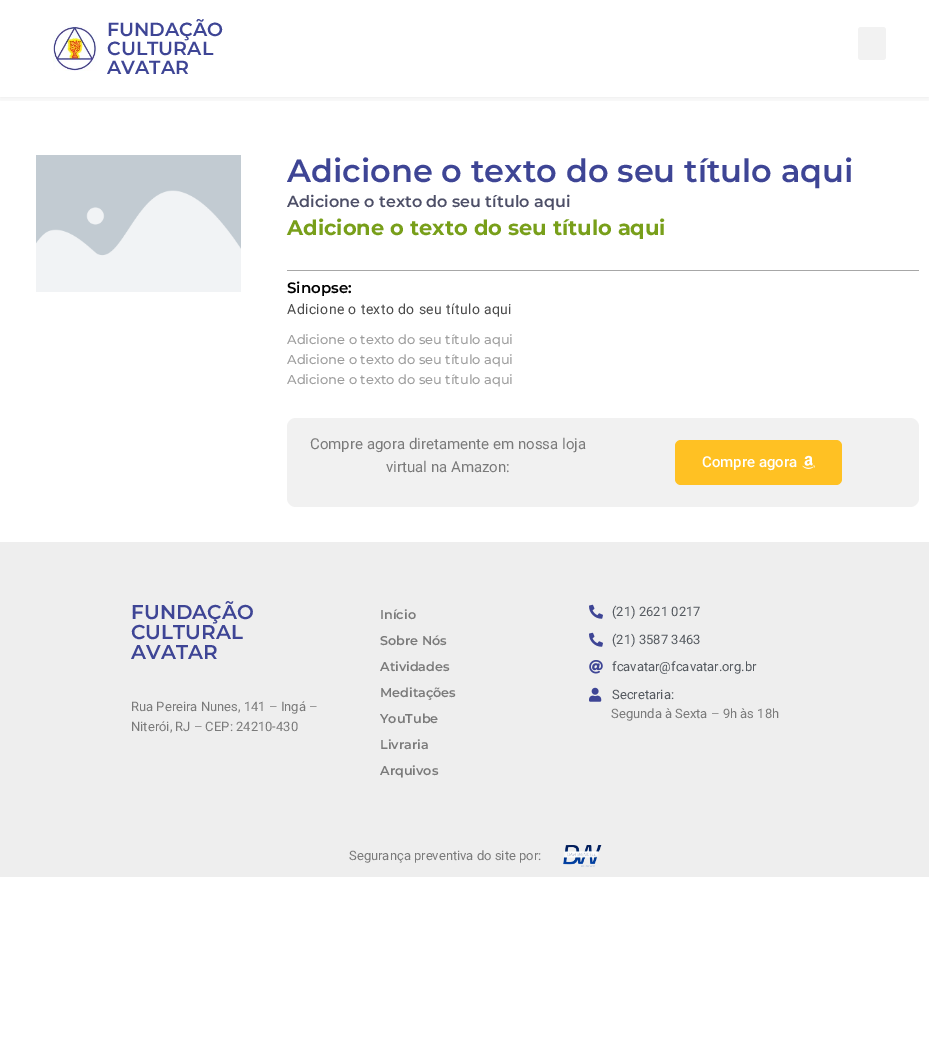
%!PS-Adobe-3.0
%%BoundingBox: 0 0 929 1063
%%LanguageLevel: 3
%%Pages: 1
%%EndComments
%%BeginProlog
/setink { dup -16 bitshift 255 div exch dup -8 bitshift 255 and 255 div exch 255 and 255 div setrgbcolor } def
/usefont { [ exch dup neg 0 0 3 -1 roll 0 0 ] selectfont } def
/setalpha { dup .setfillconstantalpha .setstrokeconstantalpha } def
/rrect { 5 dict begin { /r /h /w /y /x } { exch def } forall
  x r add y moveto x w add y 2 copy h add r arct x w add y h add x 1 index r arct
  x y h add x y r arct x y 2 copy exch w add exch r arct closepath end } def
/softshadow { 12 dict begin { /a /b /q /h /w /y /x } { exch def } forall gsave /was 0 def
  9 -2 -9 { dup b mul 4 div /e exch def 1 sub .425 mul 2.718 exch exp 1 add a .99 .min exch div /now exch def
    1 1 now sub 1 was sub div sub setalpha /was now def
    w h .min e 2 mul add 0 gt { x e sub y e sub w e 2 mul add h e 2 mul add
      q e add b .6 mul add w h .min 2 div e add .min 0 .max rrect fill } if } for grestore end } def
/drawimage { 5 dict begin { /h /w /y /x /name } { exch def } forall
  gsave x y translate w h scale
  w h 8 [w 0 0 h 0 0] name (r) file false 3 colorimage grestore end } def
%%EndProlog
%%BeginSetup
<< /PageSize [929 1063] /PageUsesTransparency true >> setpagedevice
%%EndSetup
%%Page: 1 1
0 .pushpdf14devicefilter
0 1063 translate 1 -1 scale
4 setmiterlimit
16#FFFFFF setink
0 0 929 1063 rectfill
gsave
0 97 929 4 rectclip
16#000000 setink
0 0 929 97 0 5 0.1 softshadow
grestore
(img1.raw) 53 26 44 45 drawimage
/Montserrat-SemiBold 19 usefont
16#3E4595 setink
[
    [(FUNDAÇÃO) 107 36]
    [(CULTURAL) 107 55]
    [(AVATAR) 107 74]
] { aload pop moveto show } forall
16#F2F2F2 setink
858 27 28 33 3 rrect fill
(img2.raw) 36 155 205 137 drawimage
/Montserrat-SemiBold 32 usefont
16#3E4595 setink
287 182 moveto (Adicione o texto do seu título aqui) show
/Montserrat-SemiBold 16 usefont
16#4D4F67 setink
287 207 moveto (Adicione o texto do seu título aqui) show
/Montserrat-Bold 21 usefont
16#789F1A setink
287 235 moveto (Adicione o texto do seu título aqui) show
16#A7A7A7 setink
287 270 632 1 rectfill
/Montserrat-SemiBold 15 usefont
16#000000 setink
287 293 moveto (Sinopse:) show
/Roboto-Regular 14 usefont
16#4A4A4A setink
287 314 moveto 0.4 0 (Adicione o texto do seu título aqui) ashow
/Montserrat-Medium 13 usefont
16#9D9D9D setink
[
    [(Adicione o texto do seu título aqui) 287 344]
    [(Adicione o texto do seu título aqui) 287 364]
    [(Adicione o texto do seu título aqui) 287 384]
] { aload pop moveto show } forall
16#F1F1F1 setink
287 418 632 89 9 rrect fill
/Roboto-Regular 15 usefont
16#7A7A7A setink
310 449 moveto (Compre agora diretamente em nossa loja) show
386 472 moveto (virtual na Amazon:) show
16#FFC123 setink
675 440 167 45 6 rrect fill
/Roboto-Medium 15 usefont
16#FFFFFF setink
702 467 moveto (Compre agora) show
(img3.raw) 802 455 13 14 drawimage
16#EEEEEE setink
0 542 929 335 rectfill
/Montserrat-SemiBold 20 usefont
16#3E4595 setink
[
    [(FUNDAÇÃO) 131 619]
    [(CULTURAL) 131 639]
    [(AVATAR) 131 659]
] { aload pop moveto show } forall
/Roboto-Regular 13 usefont
16#7A7A7A setink
131 711 moveto (Rua Pereira Nunes, 141 – Ingá –) show
131 731 moveto (Niterói, RJ – CEP: 24210-430) show
/Montserrat-SemiBold 12.75 usefont
[
    [(Início) 380 619]
    [(Sobre Nós) 380 645]
    [(Atividades) 380 671]
    [(Meditações) 380 697]
    [(YouTube) 380 723]
    [(Livraria) 380 749]
    [(Arquivos) 380 775]
] { aload pop moveto show } forall
(img4.raw) 589 604 14 15 drawimage
/Roboto-Regular 13 usefont
16#54595F setink
612 616 moveto (\(21\) 2621 0217) show
(img4.raw) 589 632 14 15 drawimage
612 644 moveto (\(21\) 3587 3463) show
(img5.raw) 589 660 14 14 drawimage
612 671 moveto (fcavatar@fcavatar.org.br) show
(img6.raw) 589 687 13 15 drawimage
612 699 moveto (Secretaria:) show
16#7A7A7A setink
611 718 moveto (Segunda à Sexta – 9h às 18h) show
349 860 moveto (Segurança preventiva do site por:) show
(img7.raw) 563 845 39 22 drawimage
.poppdf14devicefilter showpage
%%EOF
